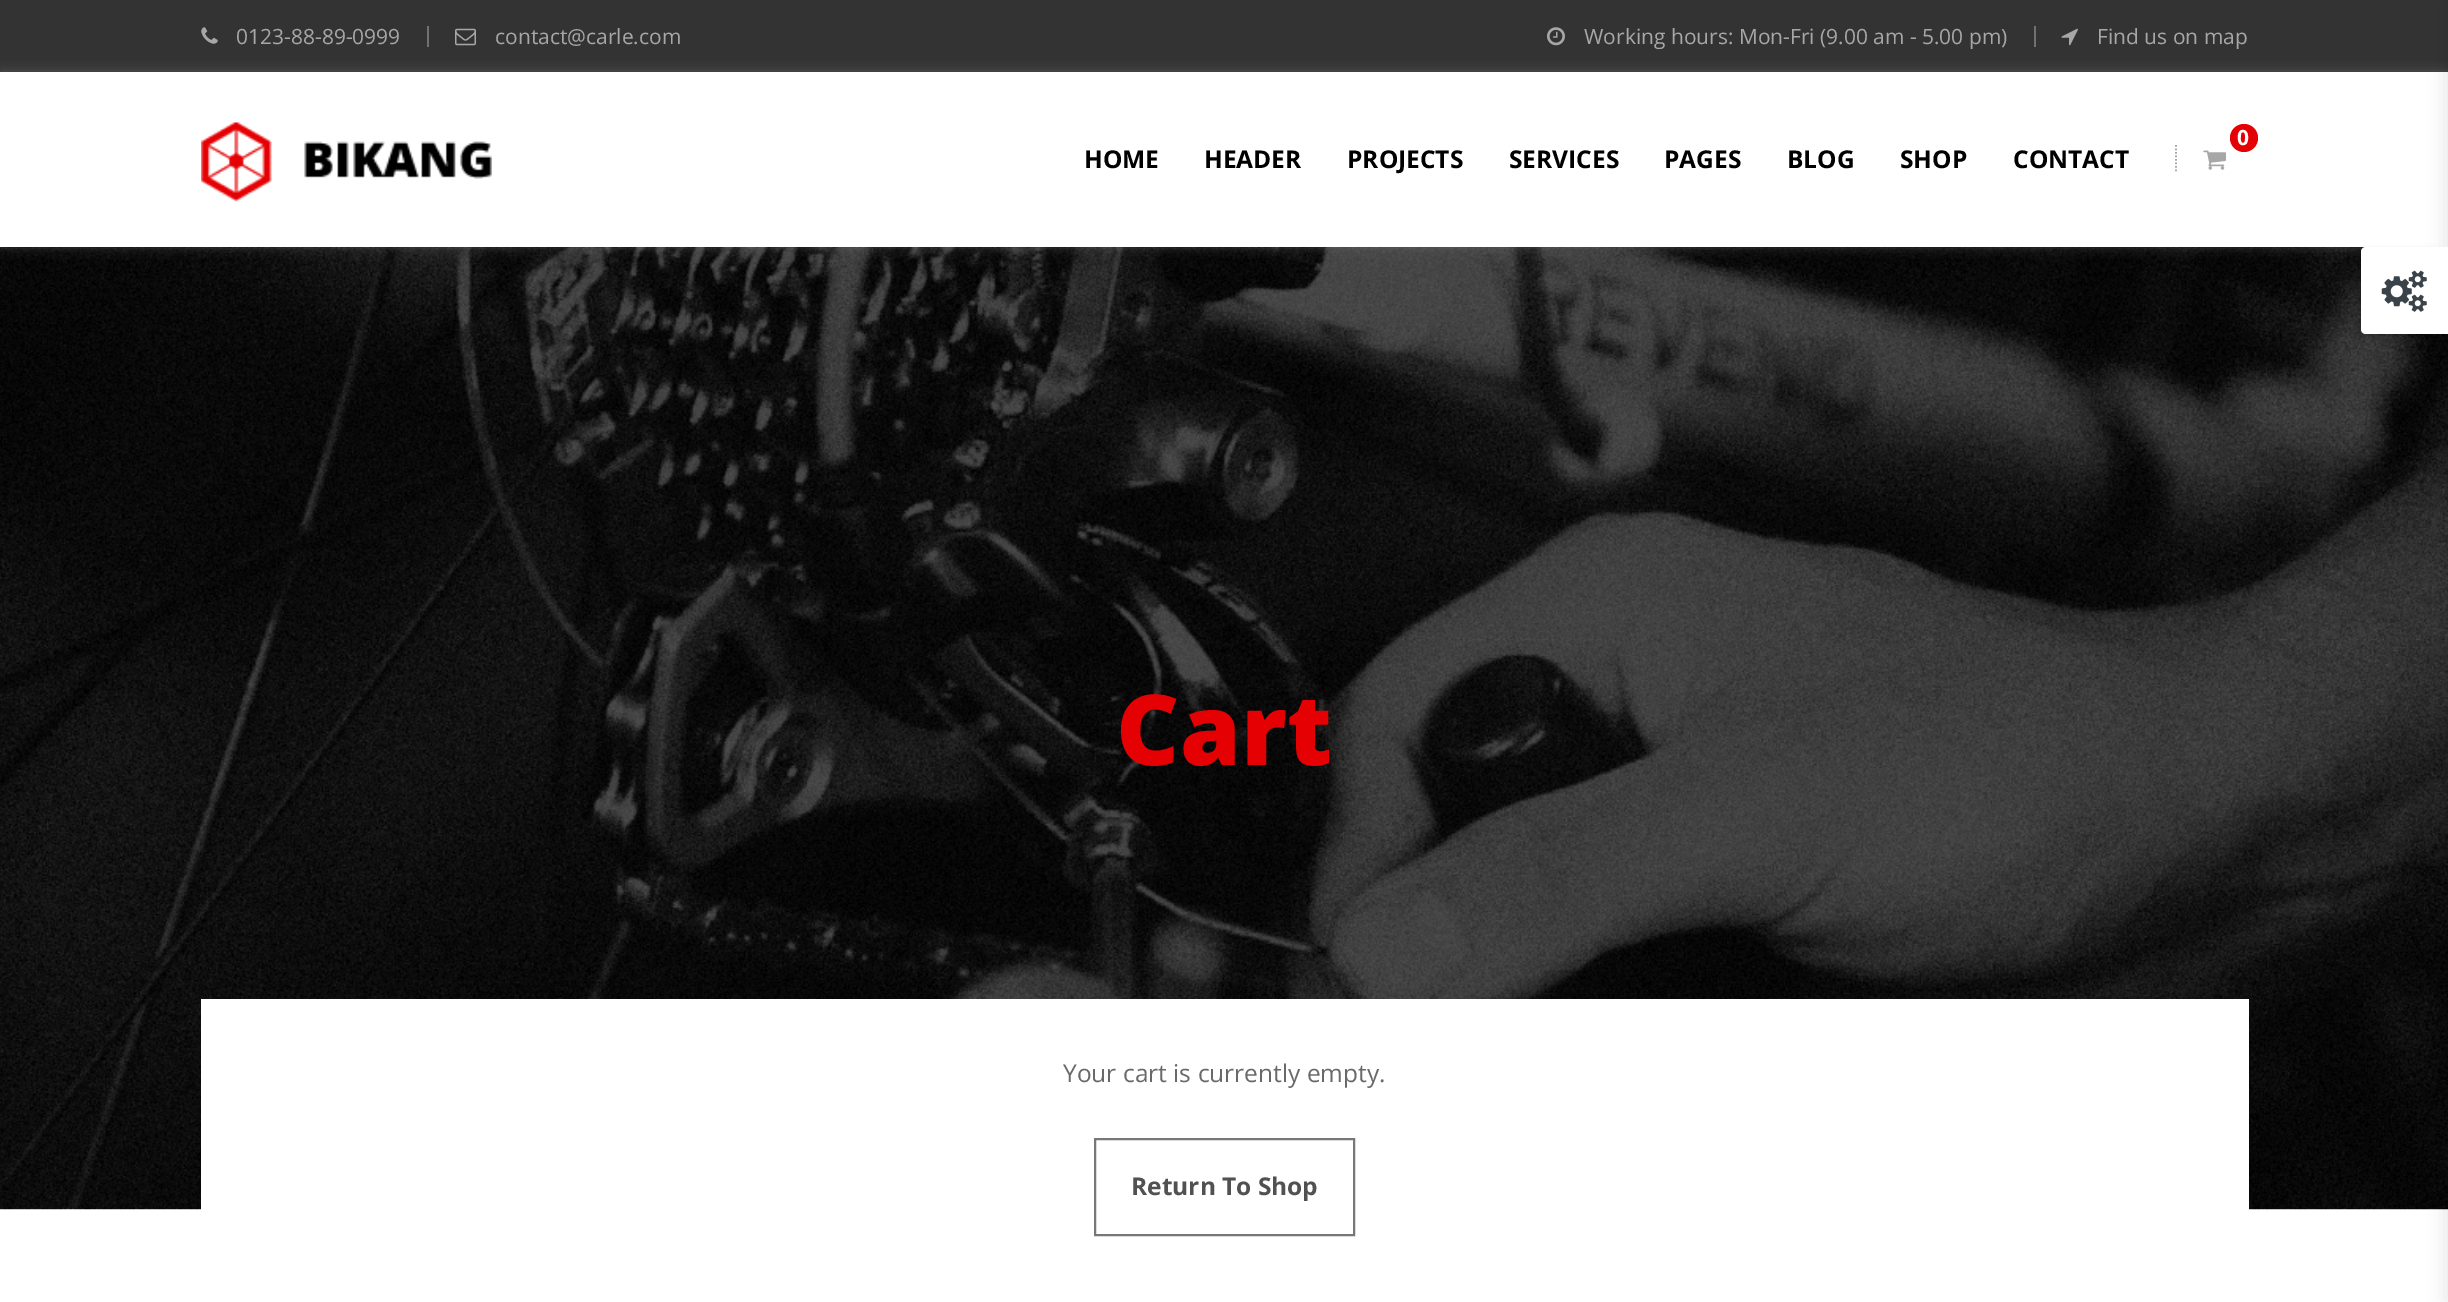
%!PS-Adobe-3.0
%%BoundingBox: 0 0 2448 1302
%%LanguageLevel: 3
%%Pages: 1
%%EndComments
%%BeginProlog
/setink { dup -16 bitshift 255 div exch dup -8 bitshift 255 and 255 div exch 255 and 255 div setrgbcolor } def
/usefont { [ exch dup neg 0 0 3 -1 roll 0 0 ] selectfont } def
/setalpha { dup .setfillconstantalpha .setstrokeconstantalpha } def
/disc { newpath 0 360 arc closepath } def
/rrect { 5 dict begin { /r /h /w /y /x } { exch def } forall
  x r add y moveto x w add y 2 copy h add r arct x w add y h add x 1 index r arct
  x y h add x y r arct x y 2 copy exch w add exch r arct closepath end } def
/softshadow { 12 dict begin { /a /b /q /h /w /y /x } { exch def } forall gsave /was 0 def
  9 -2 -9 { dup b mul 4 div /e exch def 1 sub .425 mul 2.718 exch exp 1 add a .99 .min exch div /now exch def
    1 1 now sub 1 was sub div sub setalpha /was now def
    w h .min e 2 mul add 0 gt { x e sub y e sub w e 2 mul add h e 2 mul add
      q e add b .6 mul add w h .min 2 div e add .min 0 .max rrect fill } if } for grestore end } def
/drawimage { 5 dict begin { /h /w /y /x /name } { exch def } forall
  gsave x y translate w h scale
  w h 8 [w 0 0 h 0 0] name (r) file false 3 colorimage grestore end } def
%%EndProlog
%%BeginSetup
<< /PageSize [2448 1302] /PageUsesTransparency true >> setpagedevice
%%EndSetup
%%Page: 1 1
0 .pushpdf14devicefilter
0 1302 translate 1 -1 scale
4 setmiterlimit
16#FFFFFF setink
0 0 2448 1302 rectfill
16#333333 setink
0 0 2448 72 rectfill
(img1.raw) 201 27 17 17 drawimage
/OpenSans-Regular 21 usefont
16#A8A7A7 setink
236 44 moveto (0123-88-89-0999) show
16#717171 setink
427 26 2 21 rectfill
(img2.raw) 455 28 21 18 drawimage
16#A8A7A7 setink
495 44 moveto (contact@carle.com) show
(img3.raw) 1547 27 18 19 drawimage
1584 44 moveto (Working hours: Mon-Fri \(9.00 am - 5.00 pm\)) show
16#717171 setink
2034 26 2 21 rectfill
(img4.raw) 2061 28 17 18 drawimage
16#A8A7A7 setink
2097 44 moveto (Find us on map) show
(img7.raw) 0 247 2448 963 drawimage
16#777777 setink
2 74 2445 171 0 6 0.7 softshadow
16#FFFFFF setink
0 72 2448 175 rectfill
(img5.raw) 201 122 291 80 drawimage
16#A8A7A7 setink
1.8 setlinewidth
[1.75 1.75] 0 setdash
2176 145 moveto 2176 171.5 lineto stroke
16#E50003 setink
2244 138 14 disc fill
/OpenSans-Bold 21 usefont
16#FFFFFF setink
2237 145 moveto (0) show
(img6.raw) 2203 150 23 20 drawimage
/OpenSans-Bold 24.5 usefont
16#000000 setink
[
    [(HOME) 1084 168]
    [(HEADER) 1204 168]
    [(PROJECTS) 1347 168]
    [(SERVICES) 1509 168]
    [(PAGES) 1664 168]
    [(BLOG) 1787 168]
    [(SHOP) 1900 168]
    [(CONTACT) 2013 168]
] { aload pop moveto show } forall
/OpenSans-ExtraBold 98 usefont
16#E50003 setink
1116 765 moveto (Cart) show
16#FFFFFF setink
201 999 2048 211 rectfill
/OpenSans-Regular 24.5 usefont
16#696969 setink
1063 1082 moveto (Your cart is currently empty.) show
16#777777 setink
2 setlinewidth
[] 0 setdash
1095 1139 259 96 rectstroke
/OpenSans-Bold 24.5 usefont
16#515151 setink
1131 1195 moveto (Return To Shop) show
16#000000 setink
2445 2 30 1298 0 9 0.1 softshadow
2359 254 81 80 2 4.5 0.3 softshadow
16#FFFFFF setink
2366 247 moveto 2448 247 lineto 2448 334 lineto 2366 334 lineto 2363 334 2361 332 2361 329 curveto 2361 252 lineto 2361 249 2363 247 2366 247 curveto closepath fill
(img8.raw) 2381 270 46 42 drawimage
.poppdf14devicefilter showpage
%%EOF
